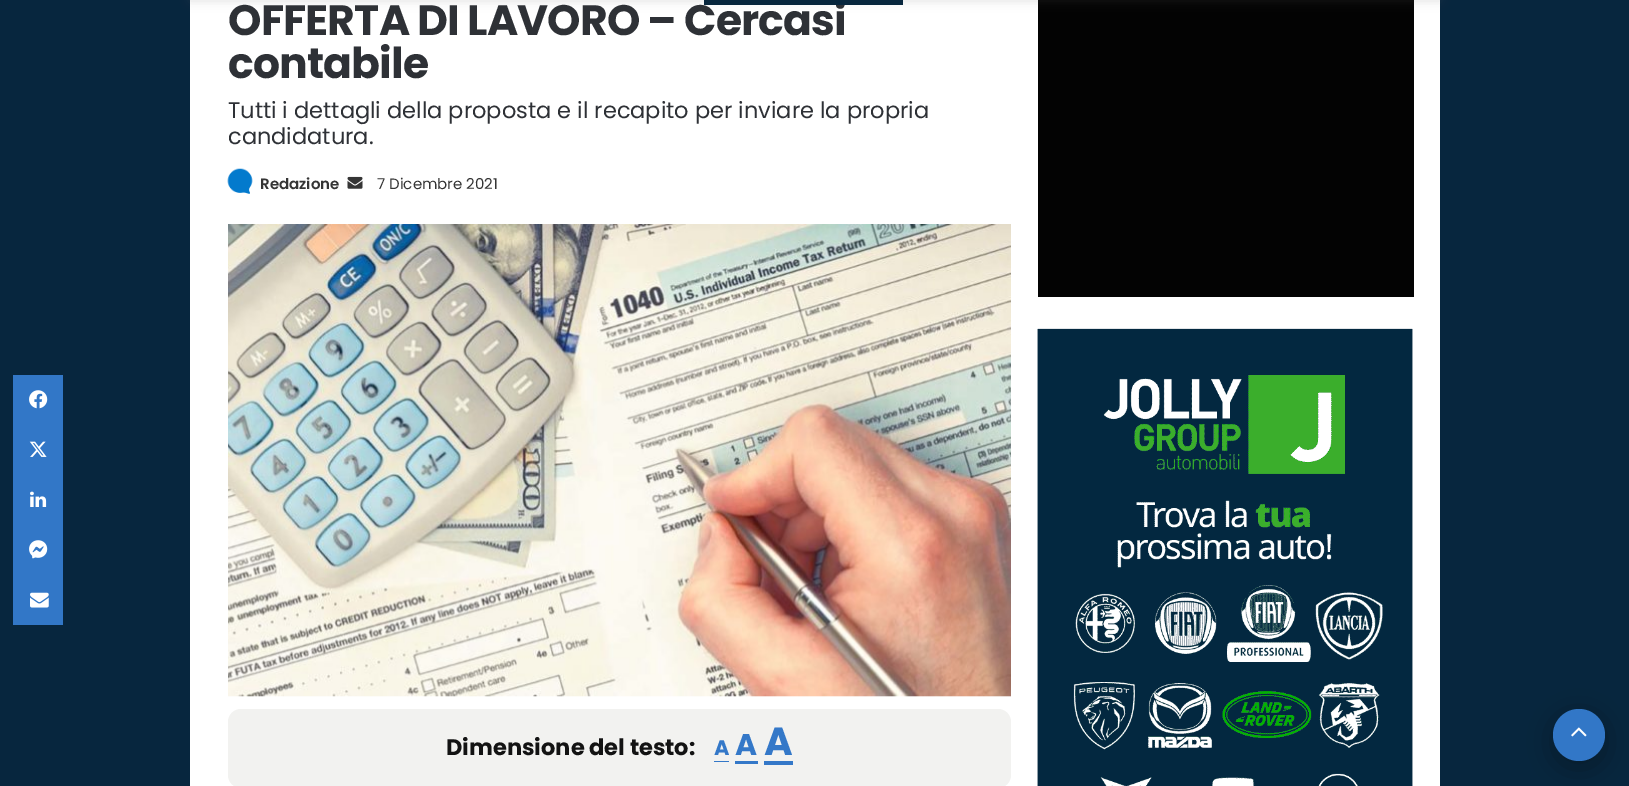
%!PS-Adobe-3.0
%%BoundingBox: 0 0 1629 786
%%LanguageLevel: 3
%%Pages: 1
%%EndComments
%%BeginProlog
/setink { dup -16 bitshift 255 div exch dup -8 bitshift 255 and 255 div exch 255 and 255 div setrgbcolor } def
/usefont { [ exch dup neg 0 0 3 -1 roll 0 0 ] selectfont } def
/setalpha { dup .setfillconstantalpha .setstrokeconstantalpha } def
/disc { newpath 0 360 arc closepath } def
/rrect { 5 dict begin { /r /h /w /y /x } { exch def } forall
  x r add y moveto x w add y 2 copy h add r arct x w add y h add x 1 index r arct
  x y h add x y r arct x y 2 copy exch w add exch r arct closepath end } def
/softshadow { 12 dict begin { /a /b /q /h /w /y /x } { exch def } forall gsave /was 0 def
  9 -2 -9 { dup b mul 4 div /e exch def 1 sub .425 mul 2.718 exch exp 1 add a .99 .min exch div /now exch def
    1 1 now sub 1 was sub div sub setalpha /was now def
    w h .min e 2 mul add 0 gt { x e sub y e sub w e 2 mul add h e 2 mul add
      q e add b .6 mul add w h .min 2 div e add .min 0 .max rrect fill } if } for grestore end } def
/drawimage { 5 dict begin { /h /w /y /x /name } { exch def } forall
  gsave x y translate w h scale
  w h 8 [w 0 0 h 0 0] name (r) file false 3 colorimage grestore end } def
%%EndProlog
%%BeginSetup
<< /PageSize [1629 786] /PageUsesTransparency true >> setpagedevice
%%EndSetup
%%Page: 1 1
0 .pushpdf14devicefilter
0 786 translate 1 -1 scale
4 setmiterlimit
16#07263E setink
0 0 1629 786 rectfill
16#FFFFFF setink
190 0 1250 786 rectfill
16#030303 setink
1038 0 376 297 rectfill
16#636363 setink
190 -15 1250 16 0 5 0.2 softshadow
/Poppins-Bold 42.5 usefont
16#2E3136 setink
228 35 moveto -0.85 0 (OFFERTA DI LAVORO – Cercasi) ashow
0.95 setalpha
[
    [704 0 199 5 16#07263E]
    [704 0 199 5 16#07263E]
] { aload pop setink rectfill } forall
1 setalpha
[
    [13 375 50 250 16#3277C7]
] { aload pop setink rectfill } forall
(img1.raw) 29 390 19 19 drawimage
(img2.raw) 29 441 18 16 drawimage
(img3.raw) 30 491 17 16 drawimage
(img4.raw) 29 540 19 19 drawimage
(img5.raw) 30 592 19 16 drawimage
16#2E3136 setink
228 78 moveto -0.85 0 (contabile) ashow
/Poppins-Regular 22.5 usefont
228 118 moveto (Tutti i dettagli della proposta e il recapito per inviare la propria) show
228 144 moveto (candidatura.) show
(img6.raw) 227 168 26 26 drawimage
/Poppins-SemiBold 15 usefont
16#353535 setink
260 189 moveto (Redazione) show
(img7.raw) 347 176 16 13 drawimage
/Poppins-Regular 15 usefont
377 189 moveto (7 Dicembre 2021) show
(img8.raw) 228 224 783 473 drawimage
16#F2F2F0 setink
228 709 783 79 13 rrect fill
/Poppins-Bold 22.5 usefont
16#131313 setink
446 755 moveto (Dimensione del testo:) show
/Poppins-Bold 21 usefont
16#3478C8 setink
714 755 moveto (A) show
714 761 15 1 rectfill
735 761 23 3 rectfill
/Poppins-Bold 30 usefont
735 755 moveto (A) show
764 761 29 4 rectfill
/Poppins-Bold 39 usefont
764 755 moveto (A) show
(img9.raw) 1037 328 376 458 drawimage
16#000000 setink
1553 715 52 53 26 15.5 0.3 softshadow
16#3277C7 setink
1579 735 26 disc fill
(img10.raw) 1571 727 16 10 drawimage
.poppdf14devicefilter showpage
%%EOF
